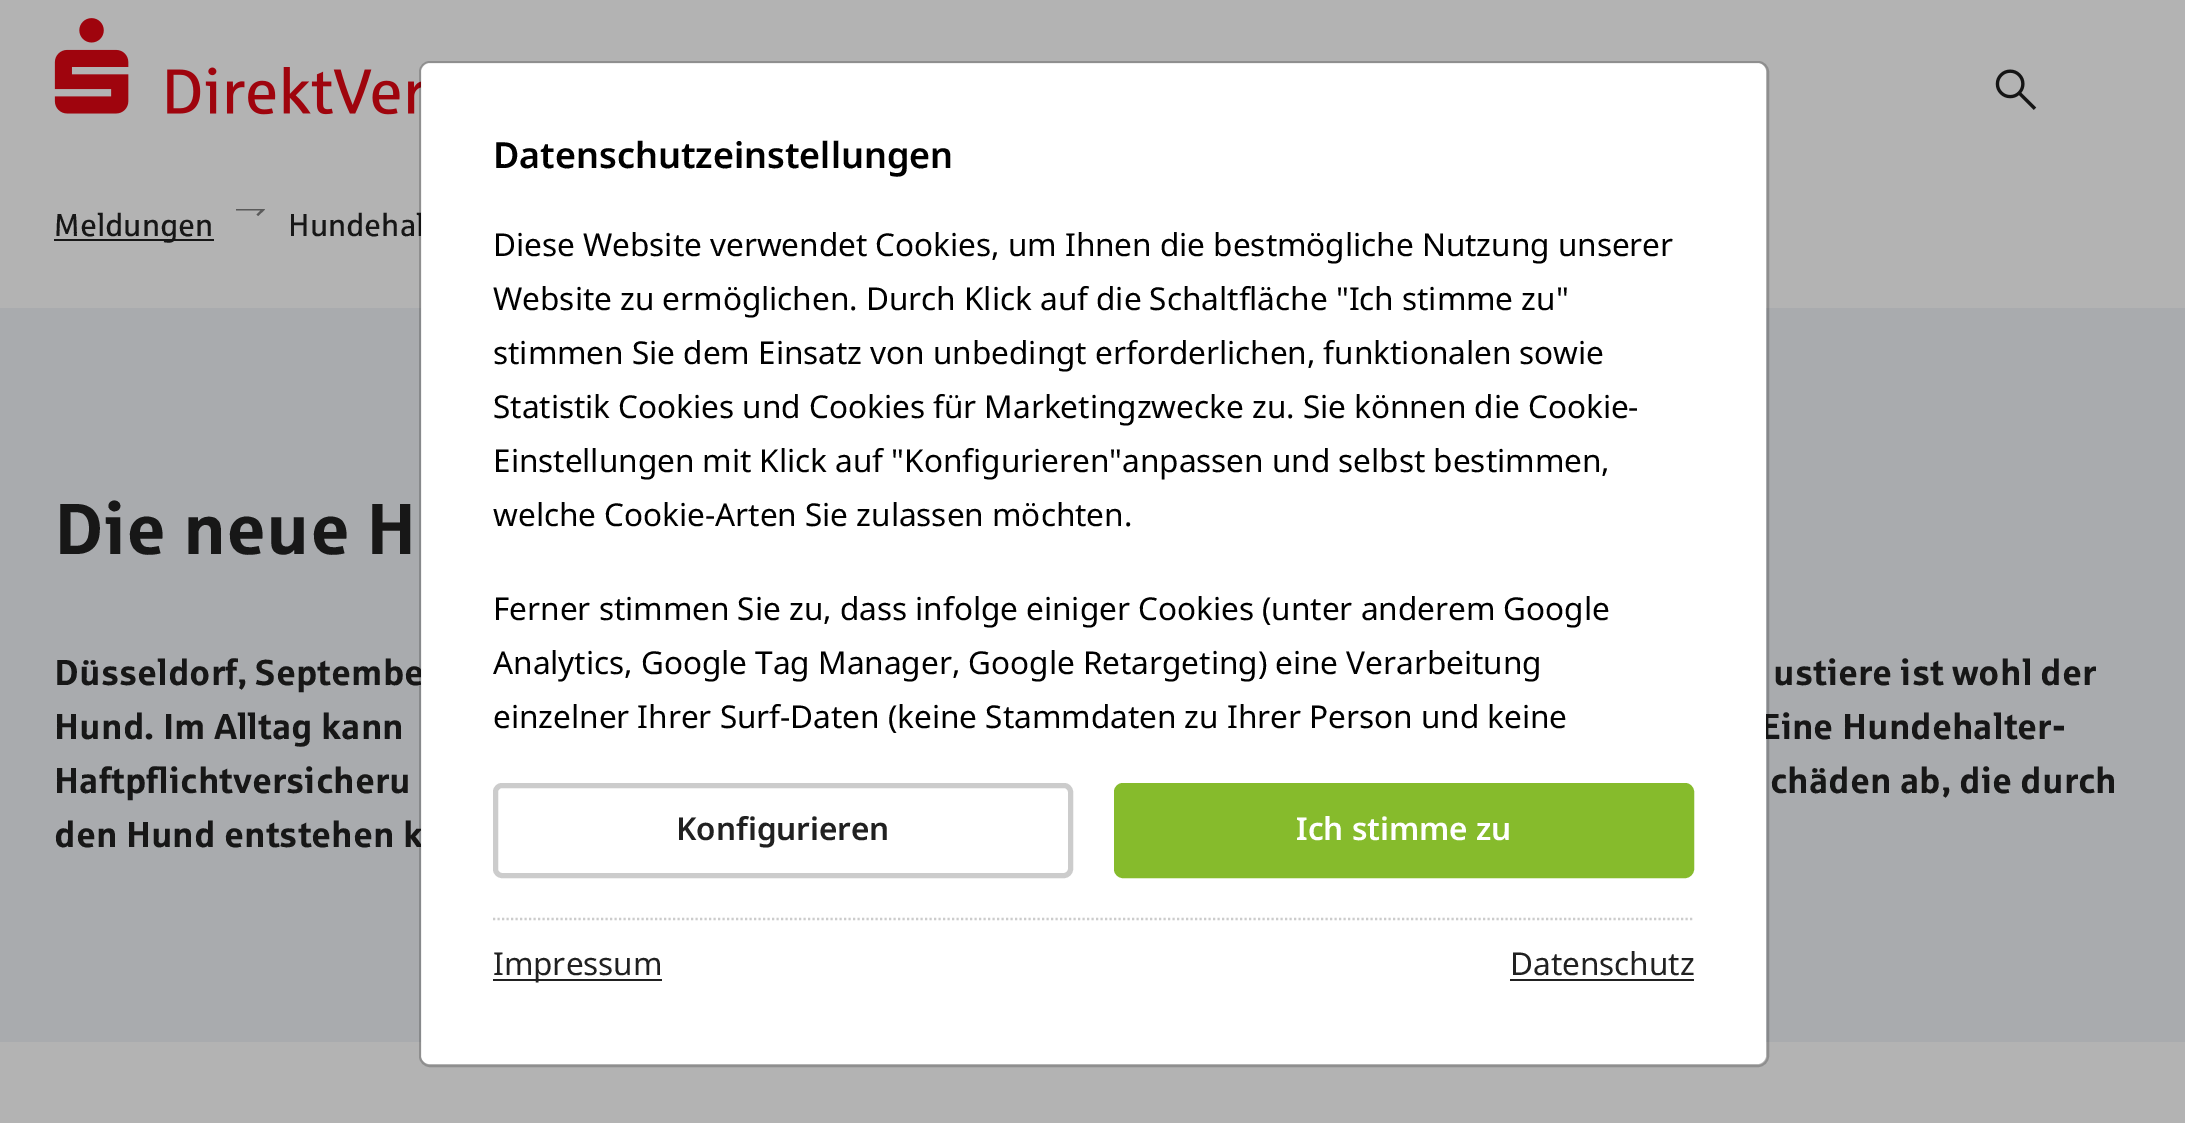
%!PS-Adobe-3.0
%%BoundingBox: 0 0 2185 1123
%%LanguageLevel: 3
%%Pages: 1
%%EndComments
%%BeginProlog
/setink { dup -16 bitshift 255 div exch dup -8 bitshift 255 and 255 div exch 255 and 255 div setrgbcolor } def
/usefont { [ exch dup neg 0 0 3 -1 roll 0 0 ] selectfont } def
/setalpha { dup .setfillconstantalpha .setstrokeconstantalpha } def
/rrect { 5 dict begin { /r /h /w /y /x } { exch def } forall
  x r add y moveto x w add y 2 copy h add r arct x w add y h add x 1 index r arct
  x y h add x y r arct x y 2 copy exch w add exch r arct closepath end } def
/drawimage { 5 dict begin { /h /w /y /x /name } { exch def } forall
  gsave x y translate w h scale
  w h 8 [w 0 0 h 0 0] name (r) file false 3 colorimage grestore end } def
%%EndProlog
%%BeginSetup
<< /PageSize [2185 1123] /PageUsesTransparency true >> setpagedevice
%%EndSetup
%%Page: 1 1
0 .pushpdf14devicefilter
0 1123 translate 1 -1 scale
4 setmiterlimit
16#B3B3B3 setink
0 0 2185 1123 rectfill
/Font-Regular 31.5 usefont
16#171717 setink
288 236 moveto (Hundehal) show
16#A9ABAE setink
0 308 2185 734 rectfill
/Font-Bold 36 usefont
16#171717 setink
[
    [(Düsseldorf, Septembe) 54 685]
    [(Eine Hundehalter-) 1760 739]
    [(den Hund entstehen k) 54 847]
] { aload pop moveto show } forall
16#FFFFFF setink
421 63 1345 1001 9 rrect fill
(img1.raw) 54 18 367 97 drawimage
0.2 setalpha
16#000000 setink
2 setlinewidth
420 62 1348 1004 10 rrect stroke
/NotoSans-SemiBold 36 usefont
1 setalpha
493 168 moveto (Datenschutzeinstellungen) show
/NotoSans-Regular 31.5 usefont
[
    [(Diese Website verwendet Cookies, um Ihnen die bestmögliche Nutzung unserer) 493 256]
    [(Website zu ermöglichen. Durch Klick auf die Schaltfläche "Ich stimme zu") 493 310]
    [(stimmen Sie dem Einsatz von unbedingt erforderlichen, funktionalen sowie) 493 364]
    [(Statistik Cookies und Cookies für Marketingzwecke zu. Sie können die Cookie-) 493 418]
    [(Einstellungen mit Klick auf "Konfigurieren"anpassen und selbst bestimmen,) 493 472]
    [(welche Cookie-Arten Sie zulassen möchten.) 493 526]
    [(Ferner stimmen Sie zu, dass infolge einiger Cookies \(unter anderem Google) 493 620]
    [(Analytics, Google Tag Manager, Google Retargeting\) eine Verarbeitung) 493 674]
    [(einzelner Ihrer Surf-Daten \(keine Stammdaten zu Ihrer Person und keine) 493 728]
] { aload pop moveto show } forall
16#CCCCCC setink
5 setlinewidth
495.5 785.5 575 90 6.5 rrect stroke
/NotoSans-SemiBold 31.5 usefont
16#212121 setink
676 840 moveto (Konfigurieren) show
16#86BB2C setink
1116.5 785.5 575 90 6.5 rrect gsave fill grestore
stroke
16#FFFFFF setink
1296 840 moveto (Ich stimme zu) show
16#CCCCCC setink
2.2 setlinewidth
[2.25 2.25] 0 setdash
493 919 moveto 1694 919 lineto stroke
16#212121 setink
493 979 169 2 rectfill
/NotoSans-Regular 31.5 usefont
493 975 moveto (Impressum) show
1510 975 moveto (Datenschutz) show
1510 979 184 2 rectfill
(img2.raw) 1995 69 42 41 drawimage
16#171717 setink
54 239 160 2 rectfill
/Font-Regular 31.5 usefont
54 236 moveto (Meldungen) show
gsave
236 209 30 7 rectclip
16#5A5A5A setink
258 216 moveto 256.5 214.5 lineto 260.5 210.5 lineto 236 210.5 lineto 236 208 lineto 260.5 208 lineto 256.5 204 lineto 258 202.5 lineto 265 209.5 lineto closepath fill
grestore
/Font-Bold 72 usefont
54 554 moveto (Die neue H) show
/Font-Bold 36 usefont
[
    [(ustiere ist wohl der) 1773 685]
    [(Hund. Im Alltag kann) 54 739]
    [(Haftpflichtversicheru) 54 793]
    [(chäden ab, die durch) 1770 793]
] { aload pop moveto show } forall
.poppdf14devicefilter showpage
%%EOF
